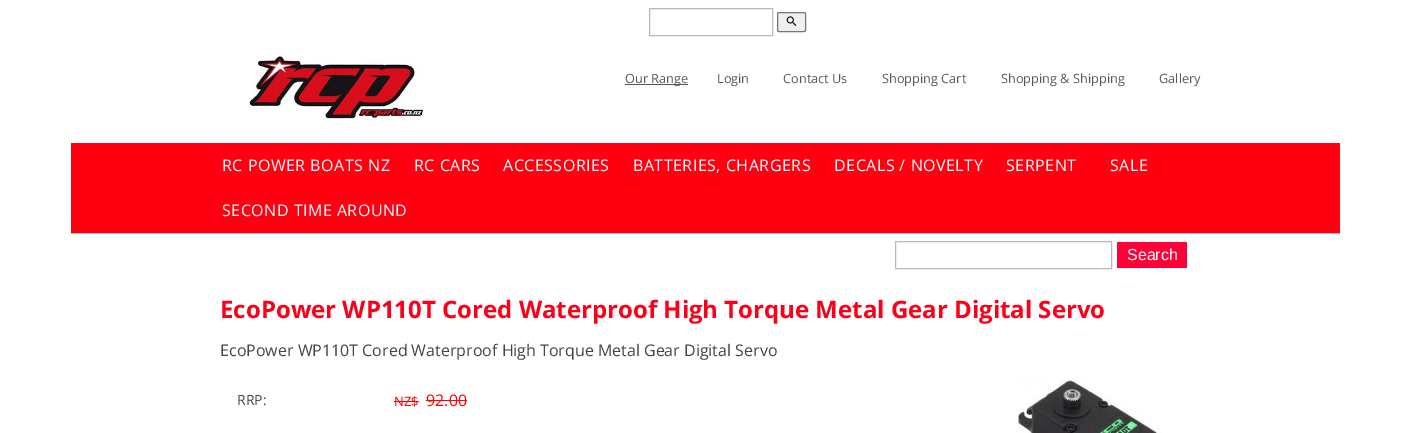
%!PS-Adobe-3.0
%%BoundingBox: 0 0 1411 433
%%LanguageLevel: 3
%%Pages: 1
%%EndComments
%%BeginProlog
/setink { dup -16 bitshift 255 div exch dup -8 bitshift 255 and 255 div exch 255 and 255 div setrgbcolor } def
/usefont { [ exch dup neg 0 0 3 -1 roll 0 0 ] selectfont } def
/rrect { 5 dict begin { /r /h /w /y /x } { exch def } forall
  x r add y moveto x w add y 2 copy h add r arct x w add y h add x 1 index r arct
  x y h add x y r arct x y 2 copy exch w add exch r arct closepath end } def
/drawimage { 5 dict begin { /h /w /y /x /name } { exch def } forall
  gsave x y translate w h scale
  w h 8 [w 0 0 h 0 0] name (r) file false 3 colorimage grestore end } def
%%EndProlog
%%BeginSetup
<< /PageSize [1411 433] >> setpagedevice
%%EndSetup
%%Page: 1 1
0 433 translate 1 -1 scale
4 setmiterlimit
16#FFFFFF setink
0 0 1411 433 rectfill
16#B8B8B8 setink
649.5 8.5 123 27 rectstroke
16#EFEFEF setink
777.5 12.5 28 19 1.5 rrect gsave fill grestore
16#767676 setink
stroke
(img1.raw) 786 16 11 10 drawimage
(img2.raw) 248 52 176 70 drawimage
16#585858 setink
625 84 63 1 rectfill
/OpenSans-Regular 12.75 usefont
[
    [(Our Range) 625 83]
    [(Login) 717 83]
    [(Contact Us) 783 83]
    [(Shopping Cart) 882 83]
    [(Shopping & Shipping) 1001 83]
    [(Gallery) 1159 83]
] { aload pop moveto show } forall
16#FF0010 setink
71 143 1269 90 rectfill
16#B8B8B8 setink
71 233 1269 1 rectfill
/OpenSans-Regular 16 usefont
16#FFFFFF setink
222 171 moveto 0.5 0 (RC POWER BOATS NZ) ashow
414 171 moveto 0.5 0 (RC CARS) ashow
503 171 moveto 0.5 0 (ACCESSORIES) ashow
633 171 moveto 0.5 0 (BATTERIES, CHARGERS) ashow
834 171 moveto 0.5 0 (DECALS / NOVELTY) ashow
1006 171 moveto 0.5 0 (SERPENT) ashow
1110 171 moveto 0.5 0 (SALE) ashow
222 216 moveto 0.5 0 (SECOND TIME AROUND) ashow
16#B8B8B8 setink
895.5 241.5 216 27 rectstroke
16#FF0037 setink
1117 242 70 26 rectfill
/LiberationSans-Regular 16 usefont
16#FFFFFF setink
1127 260 moveto (Search) show
/OpenSans-Bold 24 usefont
16#FC0019 setink
220 318 moveto (EcoPower WP110T Cored Waterproof High Torque Metal Gear Digital Servo) show
/OpenSans-Regular 16 usefont
16#444444 setink
220 356 moveto (EcoPower WP110T Cored Waterproof High Torque Metal Gear Digital Servo) show
/OpenSans-Regular 14 usefont
237 405 moveto (RRP:) show
/OpenSans-Regular 13 usefont
16#FF0000 setink
394 406 moveto (NZ$) show
394 401 25 1 rectfill
/OpenSans-Regular 16 usefont
426 406 moveto (92.00) show
426 400 41 1 rectfill
(img3.raw) 1018 378 144 55 drawimage
showpage
%%EOF
